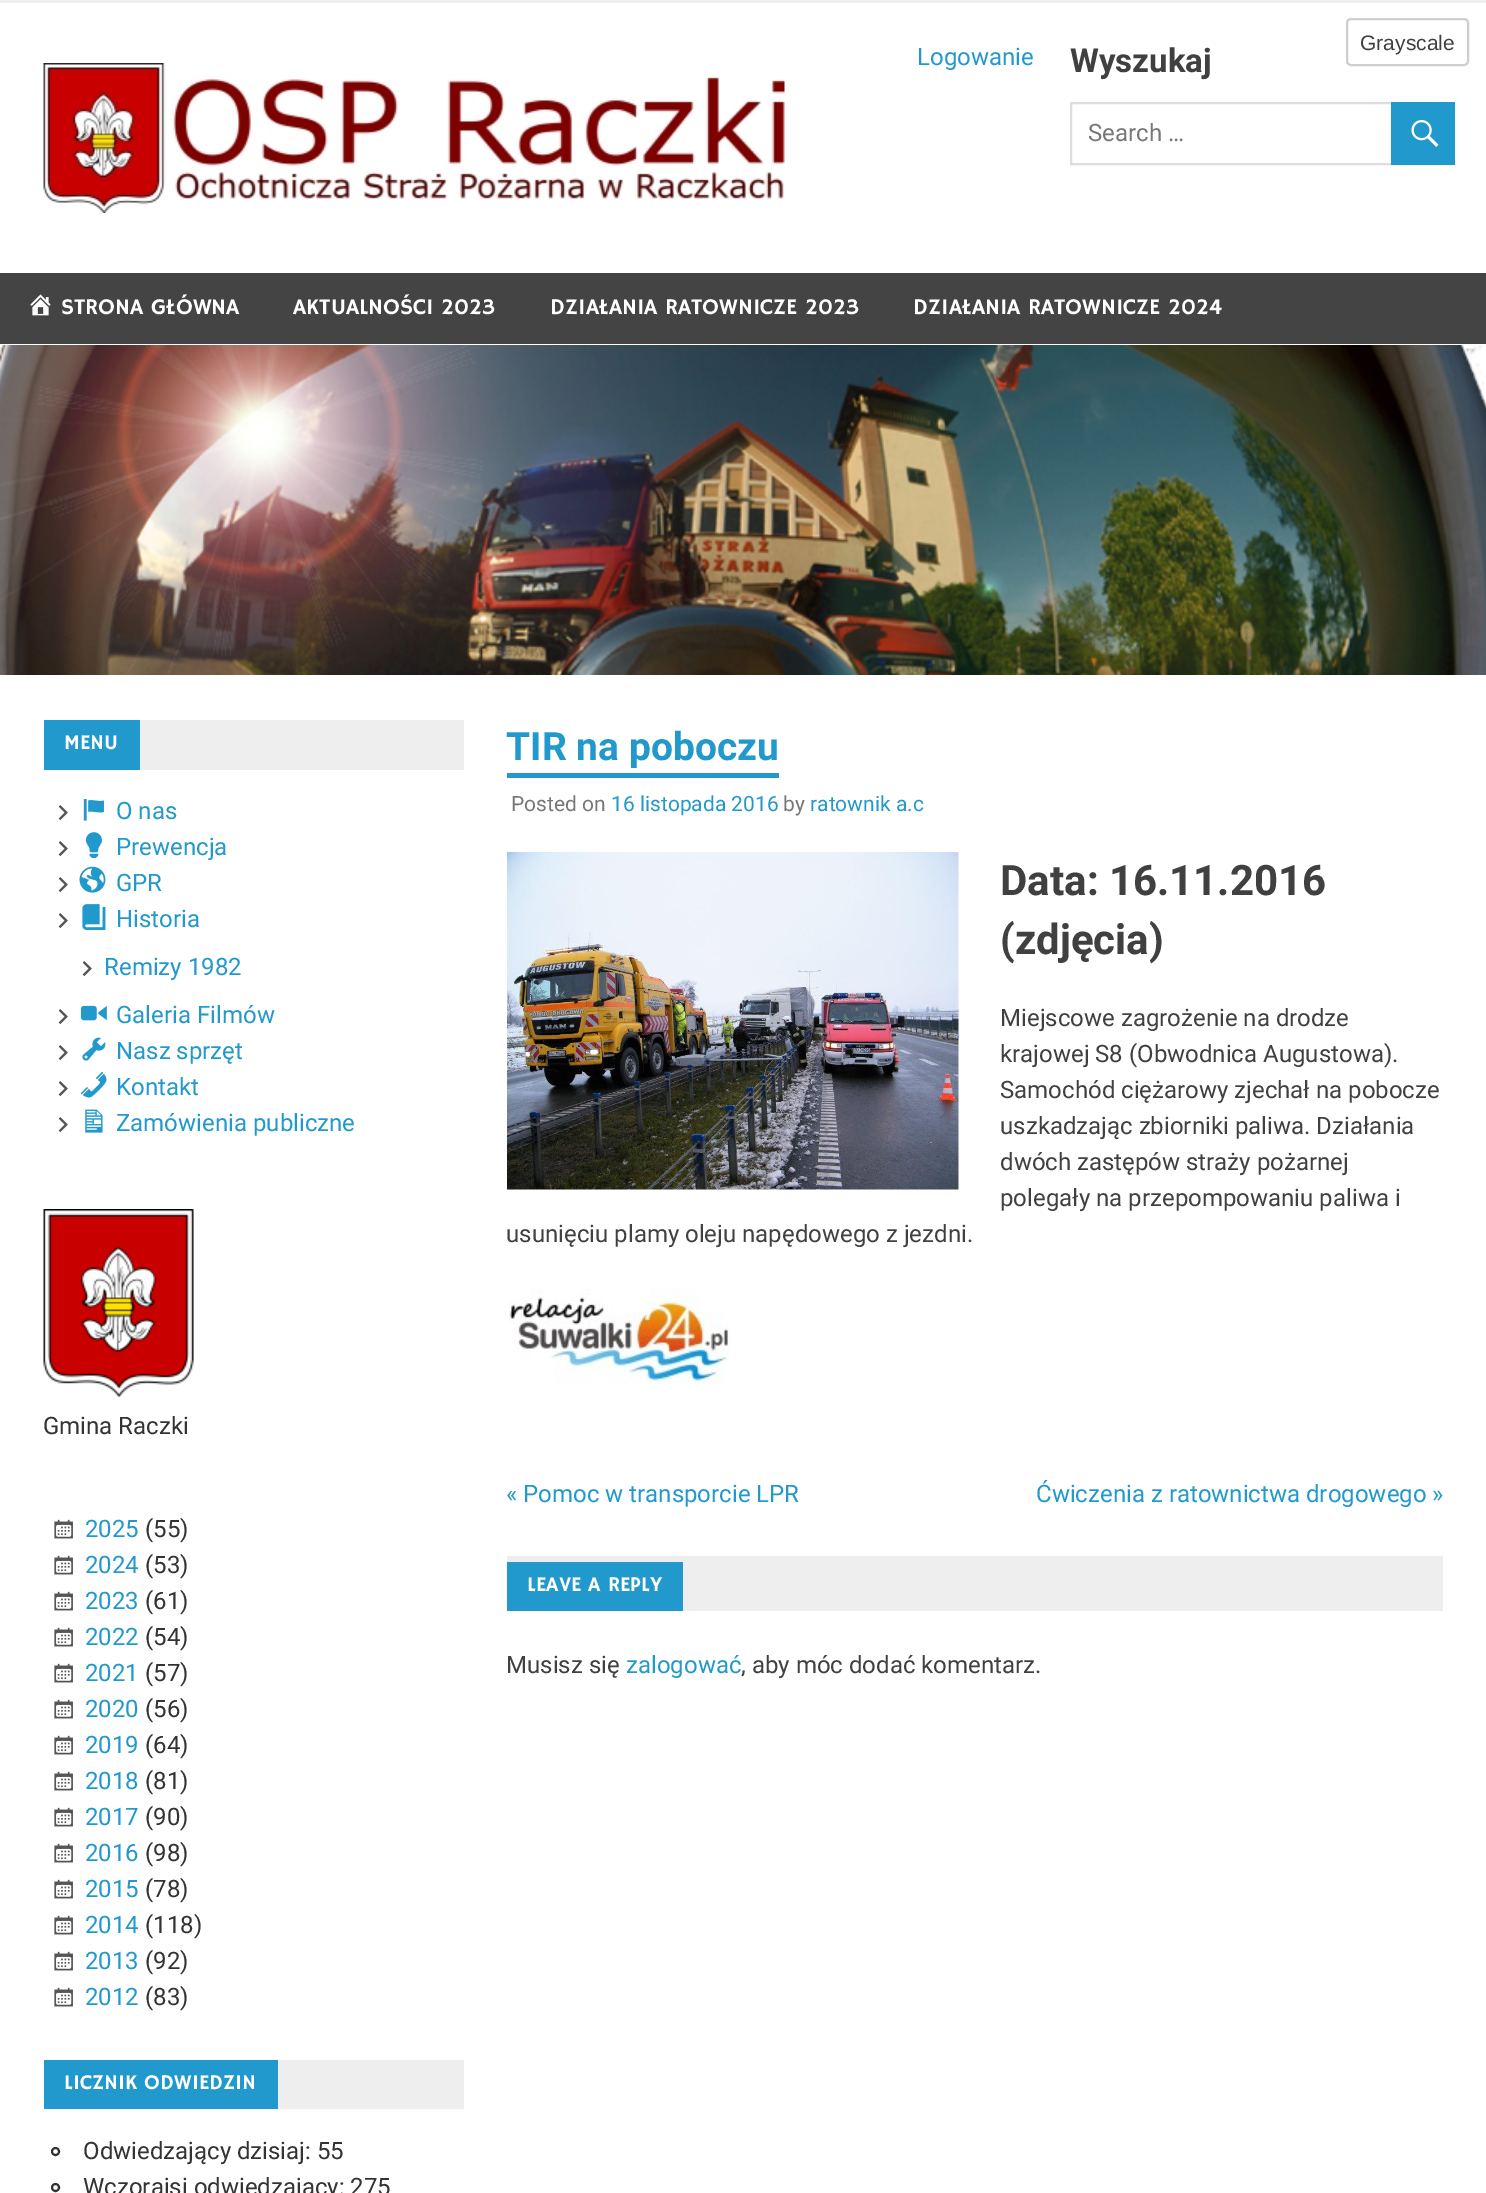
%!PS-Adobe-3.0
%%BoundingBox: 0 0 1486 2193
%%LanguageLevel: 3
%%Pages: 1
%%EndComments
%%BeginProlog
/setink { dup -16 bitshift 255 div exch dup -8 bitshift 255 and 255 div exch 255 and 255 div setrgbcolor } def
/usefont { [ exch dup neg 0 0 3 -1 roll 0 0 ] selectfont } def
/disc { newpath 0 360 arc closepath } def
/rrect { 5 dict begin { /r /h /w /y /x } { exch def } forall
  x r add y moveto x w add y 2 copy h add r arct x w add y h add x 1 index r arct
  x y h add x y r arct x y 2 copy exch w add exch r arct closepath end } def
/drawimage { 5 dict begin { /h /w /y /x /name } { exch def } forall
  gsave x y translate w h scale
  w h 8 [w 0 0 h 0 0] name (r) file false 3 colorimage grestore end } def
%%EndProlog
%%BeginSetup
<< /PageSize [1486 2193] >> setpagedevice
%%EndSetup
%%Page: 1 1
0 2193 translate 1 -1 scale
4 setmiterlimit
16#FFFFFF setink
0 0 1486 2193 rectfill
16#CECECE setink
2 setlinewidth
1347 19 121 46 4 rrect stroke
/LiberationSans-Regular 21 usefont
16#404040 setink
1360 50 moveto (Grayscale) show
16#EEEEEE setink
0 0 1486 3 rectfill
(img1.raw) 43 63 742 150 drawimage
/Roboto-Regular 24 usefont
16#2299CC setink
917 65 moveto (Logowanie) show
/Roboto-Bold 33 usefont
16#404040 setink
1070 72 moveto (Wyszukaj) show
16#DDDDDD setink
1071 103 383 61 rectstroke
/Roboto-Regular 24 usefont
16#777777 setink
1088 141 moveto (Search …) show
16#2299CC setink
1391 102 64 63 rectfill
(img2.raw) 1411 120 28 27 drawimage
16#444444 setink
0 273 1486 71 rectfill
(img3.raw) 30 294 21 22 drawimage
/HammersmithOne-Regular 22.5 usefont
16#FFFFFF setink
[
    [(STRONA GŁÓWNA) 61 314]
    [(AKTUALNOŚCI 2023) 293 314]
    [(DZIAŁANIA RATOWNICZE 2023) 550 314]
    [(DZIAŁANIA RATOWNICZE 2024) 913 314]
] { aload pop moveto show } forall
(img4.raw) 0 345 1486 330 drawimage
16#EEEEEE setink
140 720 324 50 rectfill
16#2299CC setink
44 720 96 50 rectfill
/HammersmithOne-Regular 21 usefont
16#FFFFFF setink
64 749 moveto (MENU) show
(img5.raw) 58 805 10 16 drawimage
(img6.raw) 83 799 21 22 drawimage
/Roboto-Regular 24 usefont
16#2299CC setink
116 819 moveto (O nas) show
(img5.raw) 58 841 10 16 drawimage
(img7.raw) 85 832 17 27 drawimage
116 855 moveto (Prewencja) show
(img5.raw) 58 877 10 16 drawimage
(img8.raw) 79 866 27 27 drawimage
116 891 moveto (GPR) show
(img5.raw) 58 913 10 16 drawimage
(img9.raw) 82 904 24 27 drawimage
116 927 moveto (Historia) show
(img5.raw) 82 961 10 16 drawimage
104 975 moveto (Remizy 1982) show
(img5.raw) 58 1009 10 16 drawimage
(img10.raw) 80 1005 27 16 drawimage
116 1023 moveto (Galeria Filmów) show
(img5.raw) 58 1045 10 16 drawimage
(img11.raw) 82 1037 24 24 drawimage
116 1059 moveto (Nasz sprzęt) show
(img5.raw) 58 1081 10 16 drawimage
(img12.raw) 81 1072 26 26 drawimage
116 1095 moveto (Kontakt) show
(img5.raw) 58 1117 10 16 drawimage
(img13.raw) 85 1109 18 24 drawimage
116 1131 moveto (Zamówienia publiczne) show
(img14.raw) 43 1209 151 188 drawimage
16#333333 setink
43 1434 moveto (Gmina Raczki) show
(img15.raw) 54 1519 19 20 drawimage
16#2299CC setink
85 1537 moveto (2025) show
16#333333 setink
145 1537 moveto (\(55\)) show
(img15.raw) 54 1555 19 20 drawimage
16#2299CC setink
85 1573 moveto (2024) show
16#333333 setink
145 1573 moveto (\(53\)) show
(img15.raw) 54 1591 19 20 drawimage
16#2299CC setink
85 1609 moveto (2023) show
16#333333 setink
145 1609 moveto (\(61\)) show
(img15.raw) 54 1627 19 20 drawimage
16#2299CC setink
85 1645 moveto (2022) show
16#333333 setink
145 1645 moveto (\(54\)) show
(img15.raw) 54 1663 19 20 drawimage
16#2299CC setink
85 1681 moveto (2021) show
16#333333 setink
145 1681 moveto (\(57\)) show
(img15.raw) 54 1699 19 20 drawimage
16#2299CC setink
85 1717 moveto (2020) show
16#333333 setink
145 1717 moveto (\(56\)) show
(img15.raw) 54 1735 19 20 drawimage
16#2299CC setink
85 1753 moveto (2019) show
16#333333 setink
145 1753 moveto (\(64\)) show
(img15.raw) 54 1771 19 20 drawimage
16#2299CC setink
85 1789 moveto (2018) show
16#333333 setink
145 1789 moveto (\(81\)) show
(img15.raw) 54 1807 19 20 drawimage
16#2299CC setink
85 1825 moveto (2017) show
16#333333 setink
145 1825 moveto (\(90\)) show
(img15.raw) 54 1843 19 20 drawimage
16#2299CC setink
85 1861 moveto (2016) show
16#333333 setink
145 1861 moveto (\(98\)) show
(img15.raw) 54 1879 19 20 drawimage
16#2299CC setink
85 1897 moveto (2015) show
16#333333 setink
145 1897 moveto (\(78\)) show
(img15.raw) 54 1915 19 20 drawimage
16#2299CC setink
85 1933 moveto (2014) show
16#333333 setink
145 1933 moveto (\(118\)) show
(img15.raw) 54 1951 19 20 drawimage
16#2299CC setink
85 1969 moveto (2013) show
16#333333 setink
145 1969 moveto (\(92\)) show
(img15.raw) 54 1987 19 20 drawimage
16#2299CC setink
85 2005 moveto (2012) show
16#333333 setink
145 2005 moveto (\(83\)) show
16#EEEEEE setink
278 2060 186 49 rectfill
16#2299CC setink
44 2060 234 49 rectfill
/HammersmithOne-Regular 21 usefont
16#FFFFFF setink
64 2089 moveto (LICZNIK ODWIEDZIN) show
16#333333 setink
55.5 2151.5 3.5 disc stroke
/Roboto-Regular 24 usefont
83 2159 moveto (Odwiedzający dzisiaj: 55) show
55.5 2187.5 3.5 disc stroke
83 2195 moveto (Wczorajsi odwiedzający: 275) show
/Roboto-Bold 39 usefont
16#2299CC setink
506 760 moveto (TIR na poboczu) show
507 773 272 5 rectfill
/Roboto-Regular 21 usefont
16#777777 setink
511 811 moveto (Posted on) show
16#2299CC setink
611 811 moveto (16 listopada 2016) show
16#777777 setink
783 811 moveto (by) show
16#2299CC setink
810 811 moveto (ratownik a.c) show
(img16.raw) 507 852 452 338 drawimage
/Roboto-Bold 42 usefont
16#404040 setink
1000 895 moveto (Data: 16.11.2016) show
1000 954 moveto (\(zdjęcia\)) show
/Roboto-Regular 24 usefont
[
    [(Miejscowe zagrożenie na drodze) 1000 1026]
    [(krajowej S8 \(Obwodnica Augustowa\).) 1000 1062]
    [(Samochód ciężarowy zjechał na pobocze) 1000 1098]
    [(uszkadzając zbiorniki paliwa. Działania) 1000 1134]
    [(dwóch zastępów straży pożarnej) 1000 1170]
    [(polegały na przepompowaniu paliwa i) 1000 1206]
    [(usunięciu plamy oleju napędowego z jezdni.) 506 1242]
] { aload pop moveto show } forall
(img17.raw) 509 1288 222 96 drawimage
16#2299CC setink
506 1502 moveto (« Pomoc w transporcie LPR) show
1036 1502 moveto (Ćwiczenia z ratownictwa drogowego ») show
16#EEEEEE setink
507 1556 936 55 rectfill
16#2299CC setink
507 1562 176 49 rectfill
/HammersmithOne-Regular 21 usefont
16#FFFFFF setink
527 1591 moveto (LEAVE A REPLY) show
/Roboto-Regular 24 usefont
16#404040 setink
506 1673 moveto (Musisz się) show
16#2299CC setink
626 1673 moveto (zalogować) show
16#404040 setink
741 1673 moveto (, aby móc dodać komentarz.) show
showpage
%%EOF
